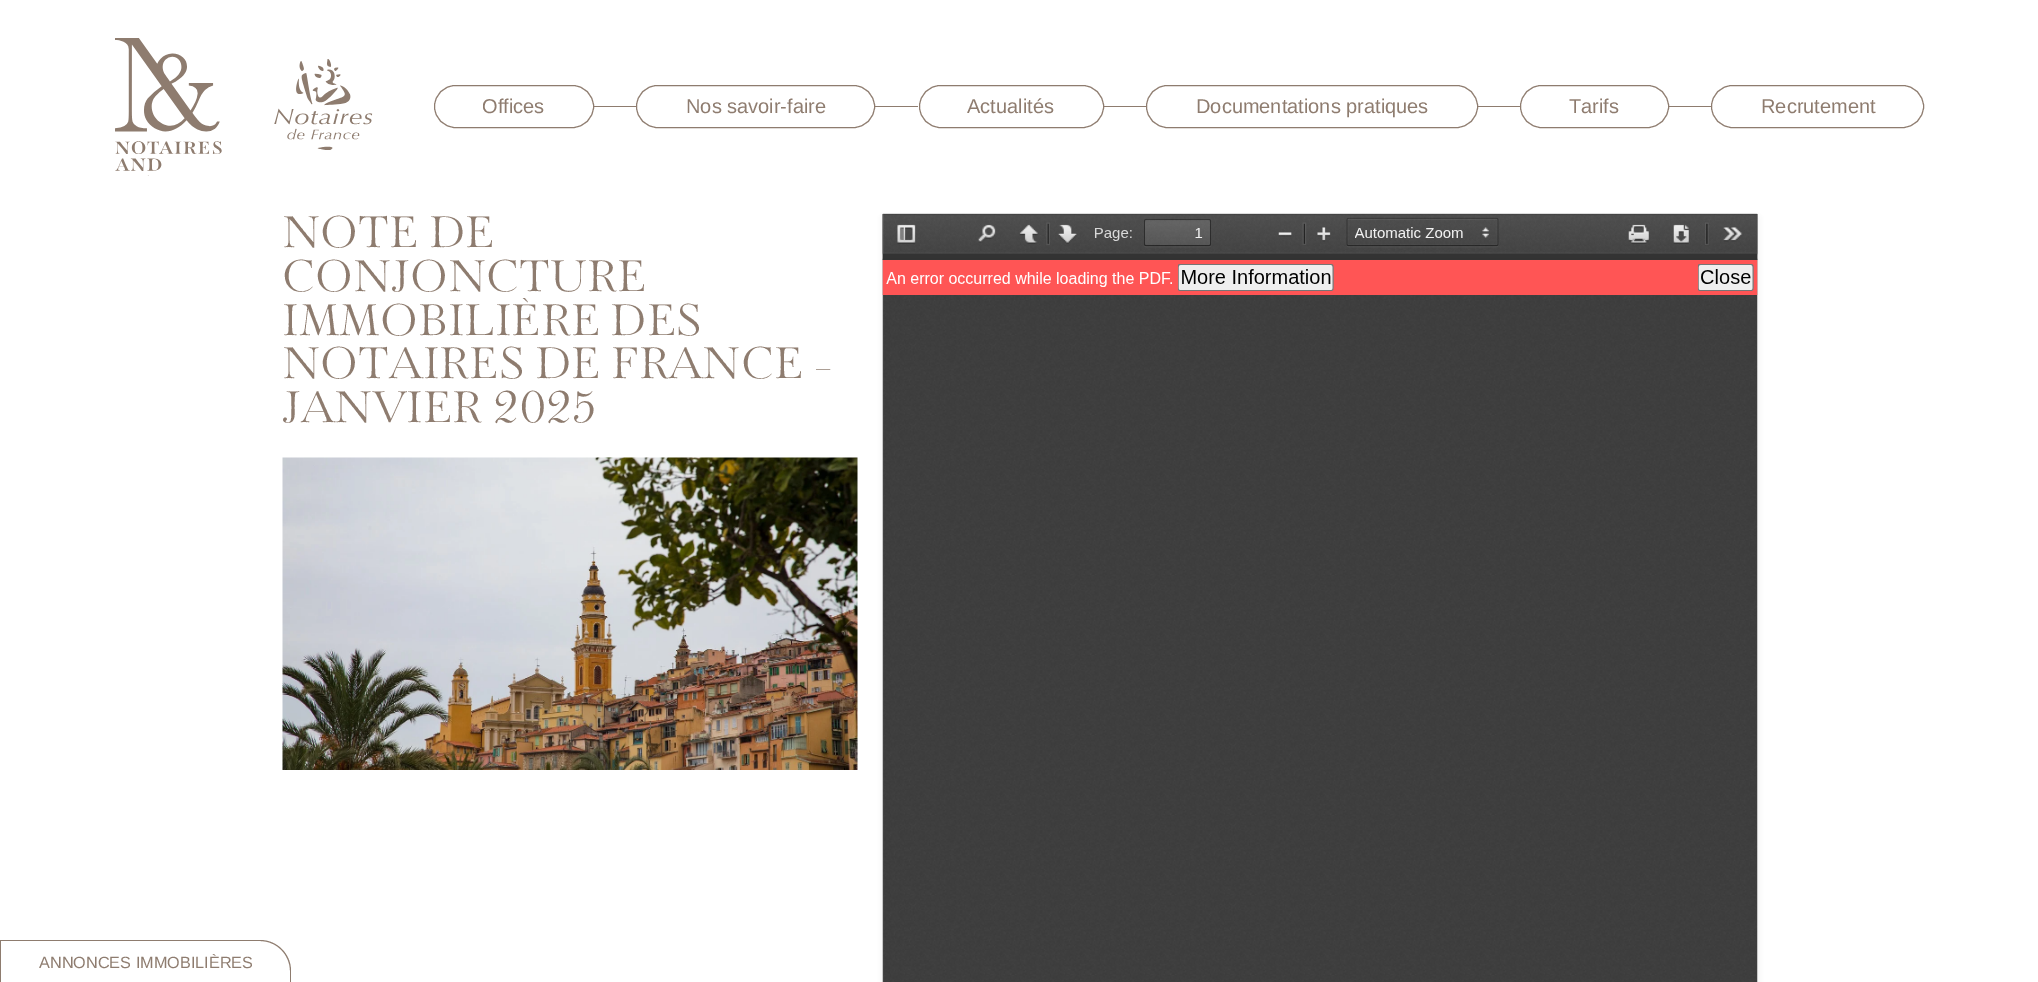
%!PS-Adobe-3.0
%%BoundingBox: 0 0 2038 982
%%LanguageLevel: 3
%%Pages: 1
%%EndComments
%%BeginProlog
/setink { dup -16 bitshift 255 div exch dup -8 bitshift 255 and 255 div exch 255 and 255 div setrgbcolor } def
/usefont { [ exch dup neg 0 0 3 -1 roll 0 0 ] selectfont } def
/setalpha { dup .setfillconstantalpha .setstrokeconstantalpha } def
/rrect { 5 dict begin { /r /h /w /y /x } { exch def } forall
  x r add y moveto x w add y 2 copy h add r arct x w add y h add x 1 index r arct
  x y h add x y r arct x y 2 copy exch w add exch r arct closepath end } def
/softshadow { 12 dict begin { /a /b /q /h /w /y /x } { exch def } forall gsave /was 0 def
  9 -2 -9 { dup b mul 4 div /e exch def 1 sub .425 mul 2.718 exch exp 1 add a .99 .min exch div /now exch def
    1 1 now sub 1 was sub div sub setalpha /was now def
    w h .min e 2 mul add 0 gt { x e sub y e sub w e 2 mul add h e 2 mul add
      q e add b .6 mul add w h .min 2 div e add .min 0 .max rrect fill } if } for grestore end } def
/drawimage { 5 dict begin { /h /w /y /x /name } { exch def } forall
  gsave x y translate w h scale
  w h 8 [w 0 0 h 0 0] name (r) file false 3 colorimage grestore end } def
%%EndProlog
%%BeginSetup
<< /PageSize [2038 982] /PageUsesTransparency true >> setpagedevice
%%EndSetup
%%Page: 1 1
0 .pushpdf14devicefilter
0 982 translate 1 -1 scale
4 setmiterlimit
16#FFFFFF setink
0 0 2038 982 rectfill
(img1.raw) 115 38 258 138 drawimage
16#8E7C6F setink
434.5 85.5 159 42 21 rrect stroke
/LiberationSans-Regular 20 usefont
482 113 moveto (Offices) show
594 106 42 1 rectfill
636.5 85.5 238 42 21 rrect stroke
686 113 moveto (Nos savoir-faire) show
875 106 43 1 rectfill
919.5 85.5 184 42 21 rrect stroke
967 113 moveto (Actualités) show
1104 106 42 1 rectfill
1146.5 85.5 331 42 21 rrect stroke
1196 113 moveto (Documentations pratiques) show
1477 106 43 1 rectfill
1520.5 85.5 148 42 21 rrect stroke
1569 113 moveto (Tarifs) show
1669 106 42 1 rectfill
1711.5 85.5 212 42 21 rrect stroke
1761 113 moveto (Recrutement) show
0 940 moveto 260 940 lineto 277 940 291 954 291 971 curveto 291 982 lineto 0 982 lineto closepath 1 941 moveto 260 941 lineto 277 941 290 955 290 971 curveto 290 982 lineto 1 982 lineto closepath eofill
/LiberationSans-Regular 16.25 usefont
39 968 moveto (ANNONCES IMMOBILIÈRES) show
/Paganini-Light 43.75 usefont
[
    [(NOTE DE) 282 247]
    [(CONJONCTURE) 282 291]
    [(IMMOBILIÈRE DES) 282 335]
    [(NOTAIRES DE FRANCE –) 282 378]
    [(JANVIER 2025) 282 422]
] { aload pop moveto show } forall
(img2.raw) 282 457 576 313 drawimage
16#EEEEEE setink
883 218 875 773 0 3 1 softshadow
(img3.raw) 882 213 876 769 drawimage
.poppdf14devicefilter showpage
%%EOF
